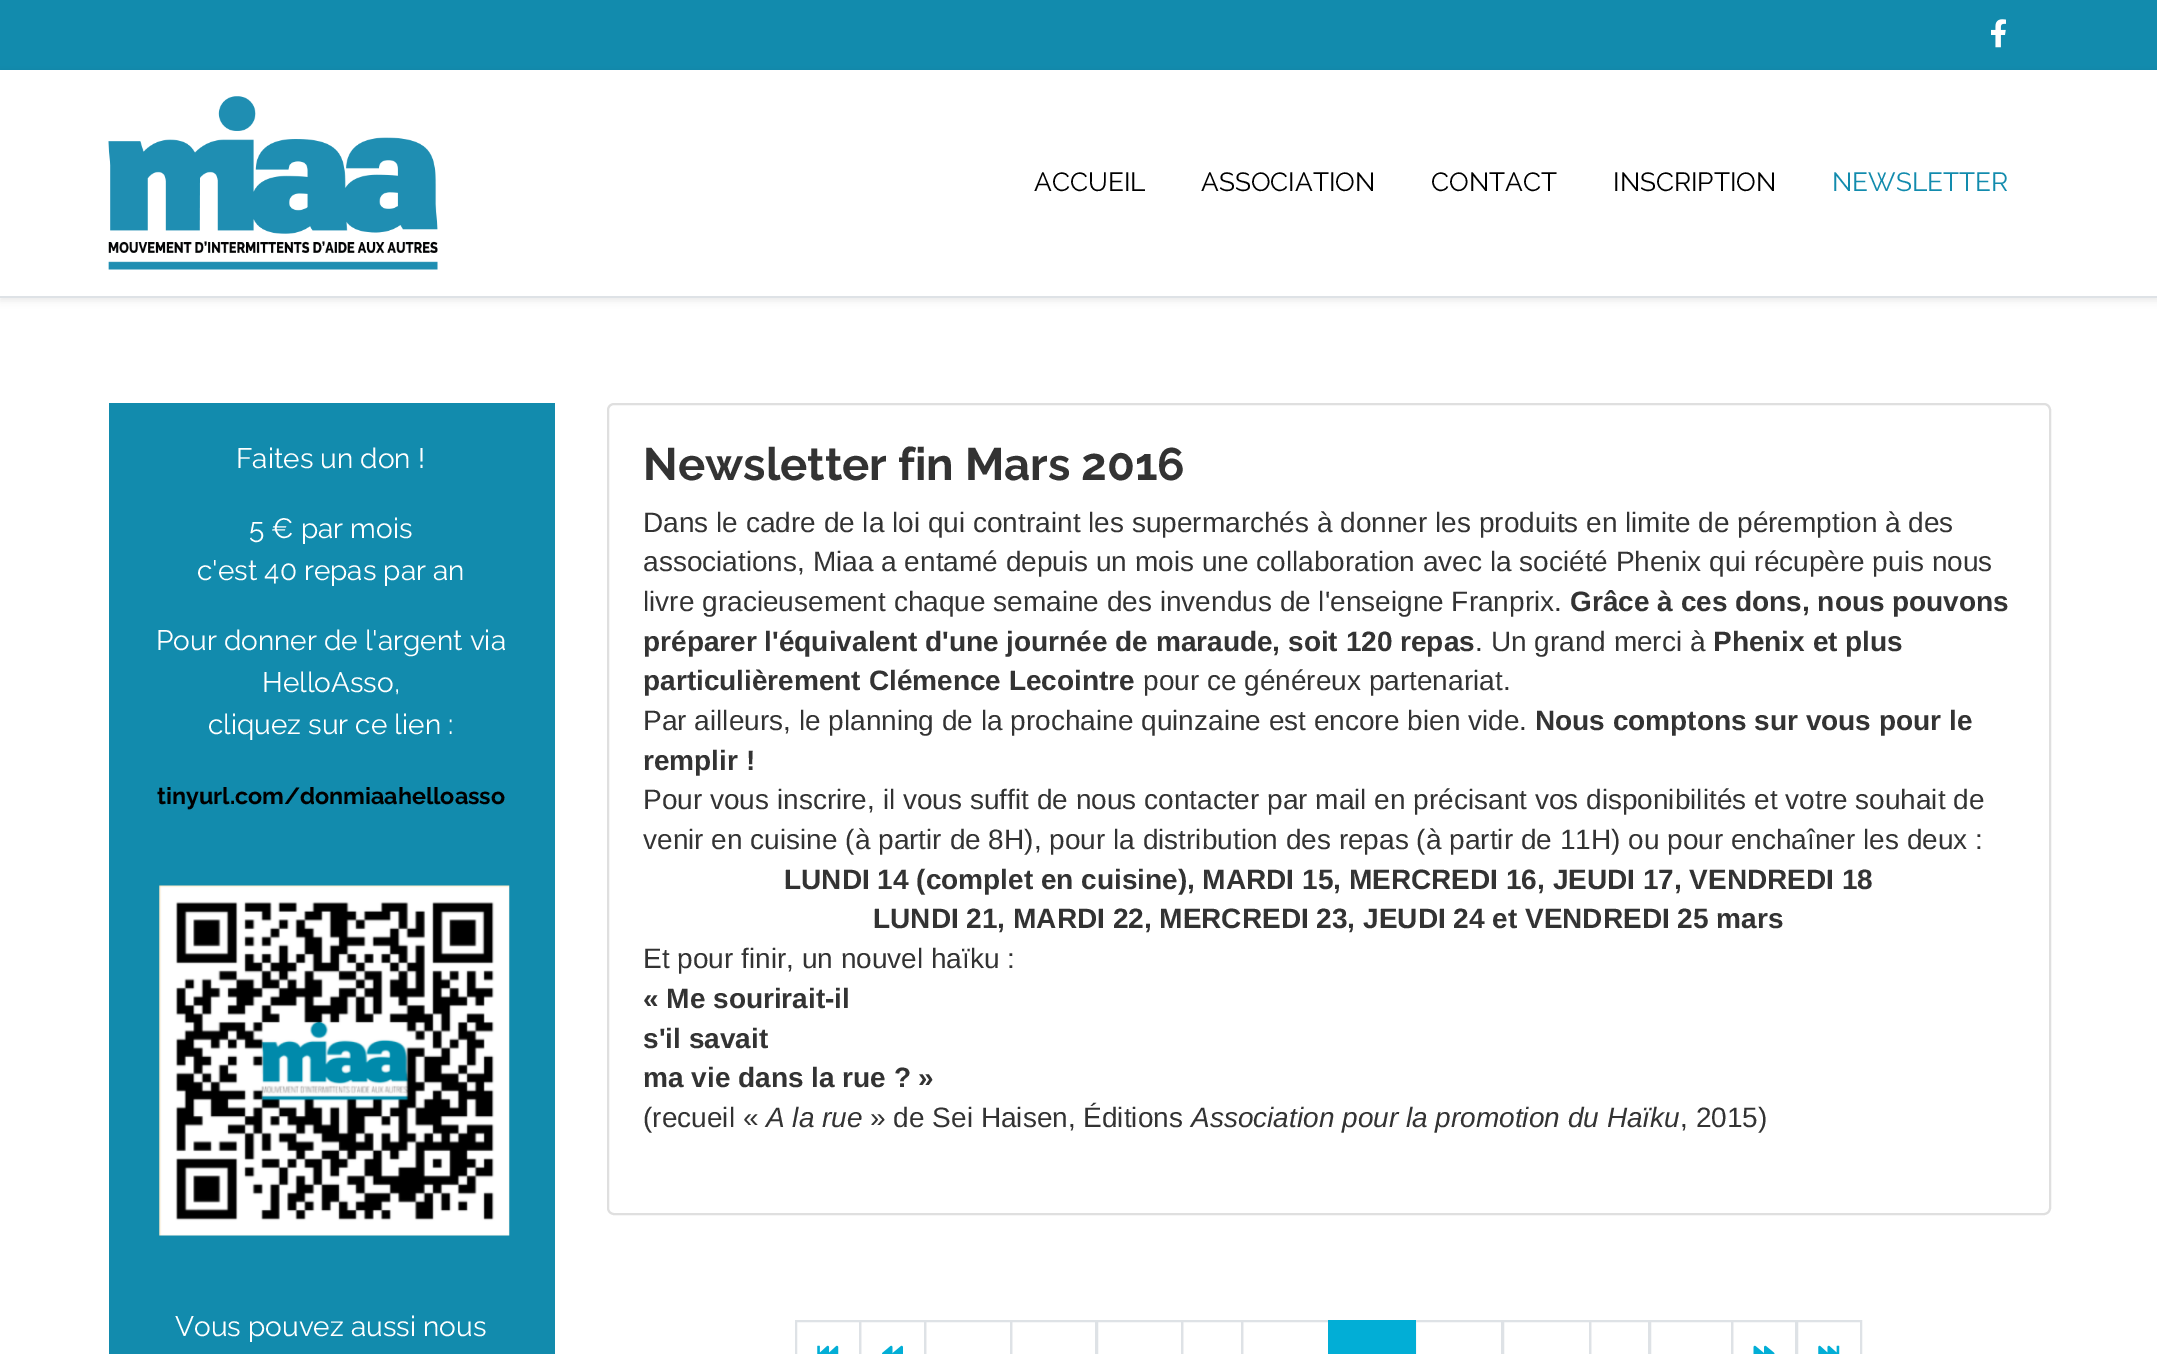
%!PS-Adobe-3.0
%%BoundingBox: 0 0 2157 1354
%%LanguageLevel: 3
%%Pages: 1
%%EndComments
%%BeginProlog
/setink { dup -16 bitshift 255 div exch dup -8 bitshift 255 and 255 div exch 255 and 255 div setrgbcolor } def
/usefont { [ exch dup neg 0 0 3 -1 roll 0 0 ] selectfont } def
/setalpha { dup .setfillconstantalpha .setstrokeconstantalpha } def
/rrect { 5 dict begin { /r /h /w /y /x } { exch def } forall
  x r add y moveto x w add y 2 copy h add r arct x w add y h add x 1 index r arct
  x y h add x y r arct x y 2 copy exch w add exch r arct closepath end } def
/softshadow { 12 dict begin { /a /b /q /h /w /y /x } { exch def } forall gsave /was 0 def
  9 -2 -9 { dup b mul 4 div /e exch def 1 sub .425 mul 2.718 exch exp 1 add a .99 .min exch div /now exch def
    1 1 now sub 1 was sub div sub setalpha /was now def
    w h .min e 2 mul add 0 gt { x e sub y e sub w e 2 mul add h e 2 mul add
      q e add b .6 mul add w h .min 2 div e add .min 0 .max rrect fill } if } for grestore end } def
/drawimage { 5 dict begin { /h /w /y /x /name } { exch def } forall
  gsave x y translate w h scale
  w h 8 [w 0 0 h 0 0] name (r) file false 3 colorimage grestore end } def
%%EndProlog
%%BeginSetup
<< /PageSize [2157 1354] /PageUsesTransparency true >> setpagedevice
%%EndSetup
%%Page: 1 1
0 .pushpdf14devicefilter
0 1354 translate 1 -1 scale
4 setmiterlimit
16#FFFFFF setink
0 0 2157 1354 rectfill
16#128BAD setink
0 0 2157 70 rectfill
(img1.raw) 1991 19 15 29 drawimage
16#000000 setink
0 74 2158 227 0 3.5 0.07 softshadow
16#FFFFFF setink
0 70 2157 226 rectfill
16#DEE2E6 setink
0 296 2157 2 rectfill
(img2.raw) 108 96 330 174 drawimage
/Raleway-Regular 26.25 usefont
16#000000 setink
[
    [(ACCUEIL) 1034 191]
    [(ASSOCIATION) 1201 191]
    [(CONTACT) 1431 191]
    [(INSCRIPTION) 1613 191]
] { aload pop moveto show } forall
16#128BAD setink
1832 191 moveto (NEWSLETTER) show
109 403 446 951 rectfill
/Raleway-Regular 28 usefont
16#FFFFFF setink
[
    [(Faites un don !) 236 468]
    [(5 € par mois) 249 538]
    [(c'est 40 repas par an) 197 580]
    [(Pour donner de l'argent via) 156 650]
    [(HelloAsso,) 262 692]
    [(cliquez sur ce lien :) 208 734]
] { aload pop moveto show } forall
/Raleway-Bold 23.3 usefont
16#000000 setink
157 804 moveto (tinyurl.com/donmiaahelloasso) show
(img3.raw) 159 885 351 351 drawimage
/Raleway-Regular 28 usefont
16#FFFFFF setink
175 1336 moveto (Vous pouvez aussi nous) show
16#DFDFDF setink
2 setlinewidth
608 404 1442 810 6 rrect stroke
/Raleway-Bold 45.5 usefont
16#333333 setink
643 480 moveto (Newsletter fin Mars 2016) show
/LiberationSans-Regular 28 usefont
[
    [(Dans le cadre de la loi qui contraint les supermarchés à donner les produits en limite de péremption à des) 643 532]
    [(associations, Miaa a entamé depuis un mois une collaboration avec la société Phenix qui récupère puis nous) 643 571]
    [(livre gracieusement chaque semaine des invendus de l'enseigne Franprix.) 643 611]
] { aload pop moveto show } forall
/LiberationSans-Bold 28 usefont
1570 611 moveto (Grâce à ces dons, nous pouvons) show
643 651 moveto (préparer l'équivalent d'une journée de maraude, soit 120 repas) show
/LiberationSans-Regular 28 usefont
1475 651 moveto (. Un grand merci à) show
/LiberationSans-Bold 28 usefont
1713 651 moveto (Phenix et plus) show
643 690 moveto (particulièrement Clémence Lecointre) show
/LiberationSans-Regular 28 usefont
1143 690 moveto (pour ce généreux partenariat.) show
643 730 moveto (Par ailleurs, le planning de la prochaine quinzaine est encore bien vide.) show
/LiberationSans-Bold 28 usefont
1535 730 moveto (Nous comptons sur vous pour le) show
643 770 moveto (remplir !) show
/LiberationSans-Regular 28 usefont
643 809 moveto (Pour vous inscrire, il vous suffit de nous contacter par mail en précisant vos disponibilités et votre souhait de) show
643 849 moveto (venir en cuisine \(à partir de 8H\), pour la distribution des repas \(à partir de 11H\) ou pour enchaîner les deux :) show
/LiberationSans-Bold 28 usefont
784 889 moveto (LUNDI 14 \(complet en cuisine\), MARDI 15, MERCREDI 16, JEUDI 17, VENDREDI 18) show
873 928 moveto (LUNDI 21, MARDI 22, MERCREDI 23, JEUDI 24 et VENDREDI 25 mars) show
/LiberationSans-Regular 28 usefont
643 968 moveto (Et pour finir, un nouvel haïku :) show
/LiberationSans-Bold 28 usefont
[
    [(« Me sourirait-il) 643 1008]
    [(s'il savait) 643 1048]
    [(ma vie dans la rue ? ») 643 1087]
] { aload pop moveto show } forall
/LiberationSans-Regular 28 usefont
643 1127 moveto (\(recueil «) show
/LiberationSans-Italic 28 usefont
766 1127 moveto (A la rue) show
/LiberationSans-Regular 28 usefont
870 1127 moveto (» de Sei Haisen, Éditions) show
/LiberationSans-Italic 28 usefont
1191 1127 moveto (Association pour la promotion du Haïku) show
/LiberationSans-Regular 28 usefont
1680 1127 moveto (, 2015\)) show
16#DEE2E6 setink
796 1321 64 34 rectstroke
(img4.raw) 817 1345 22 9 drawimage
860 1321 65 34 rectstroke
(img5.raw) 882 1345 21 9 drawimage
925 1321 86 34 rectstroke
1011 1321 85 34 rectstroke
1097 1321 85 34 rectstroke
1182 1321 60 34 rectstroke
1242 1321 87 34 rectstroke
1415 1321 87 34 rectstroke
16#02AED6 setink
1328 1320 88 34 rectfill
16#DEE2E6 setink
1503 1321 87 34 rectstroke
1590 1321 59 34 rectstroke
1650 1321 82 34 rectstroke
1732 1321 64 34 rectstroke
(img6.raw) 1753 1345 22 9 drawimage
1797 1321 64 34 rectstroke
(img7.raw) 1818 1345 22 9 drawimage
.poppdf14devicefilter showpage
%%EOF
